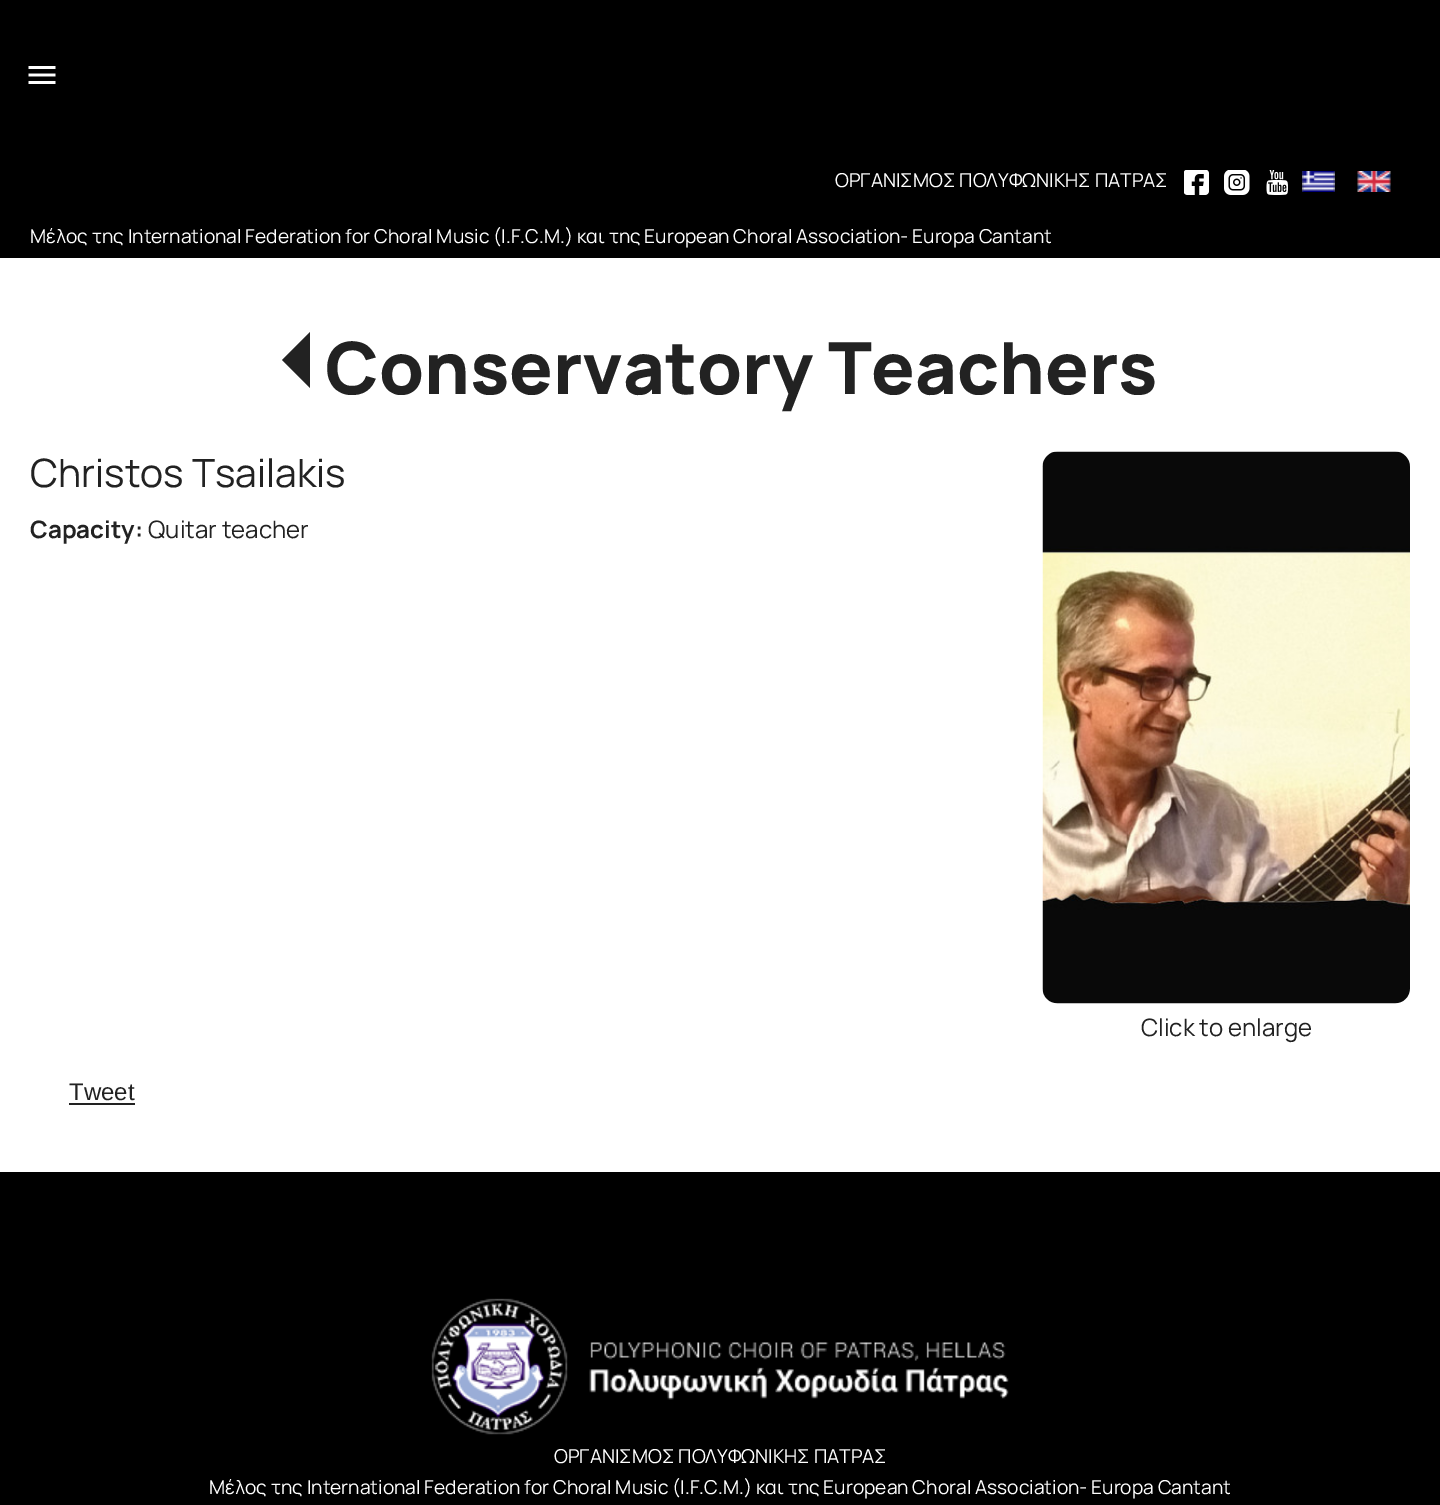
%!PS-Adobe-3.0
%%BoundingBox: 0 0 1440 1505
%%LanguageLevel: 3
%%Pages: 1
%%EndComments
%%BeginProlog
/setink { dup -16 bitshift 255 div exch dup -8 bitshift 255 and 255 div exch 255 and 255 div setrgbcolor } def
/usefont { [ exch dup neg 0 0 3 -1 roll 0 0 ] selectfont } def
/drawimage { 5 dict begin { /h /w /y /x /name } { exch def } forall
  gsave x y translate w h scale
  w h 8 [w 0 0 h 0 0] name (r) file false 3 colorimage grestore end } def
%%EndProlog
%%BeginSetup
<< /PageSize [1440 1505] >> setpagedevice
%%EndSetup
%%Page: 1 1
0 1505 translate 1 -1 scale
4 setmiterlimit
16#FFFFFF setink
0 0 1440 1505 rectfill
16#000000 setink
0 0 1440 258 rectfill
(img1.raw) 28 66 28 18 drawimage
/Manrope-Regular 19.2 usefont
16#FFFFFF setink
835 187 moveto (ΟΡΓΑΝΙΣΜΟΣ ΠΟΛΥΦΩΝΙΚΗΣ ΠΑΤΡΑΣ) show
(img2.raw) 1184 170 25 25 drawimage
(img3.raw) 1224 170 26 25 drawimage
(img4.raw) 1266 170 22 25 drawimage
(img5.raw) 1302 171 33 21 drawimage
(img6.raw) 1357 171 34 21 drawimage
30 243 moveto (Μέλος της International Federation for Choral Music \(I.F.C.M.\) και της European Choral Association- Europa Cantant) show
16#222222 setink
310 332 moveto 310 388 lineto 282 360 lineto closepath fill
/Manrope-ExtraBold 72 usefont
325 394 moveto (Conservatory Teachers) show
/Manrope-Regular 39 usefont
30 487 moveto (Christos Tsailakis) show
/Manrope-Bold 24 usefont
30 538 moveto (Capacity:) show
/Manrope-Regular 24 usefont
148 538 moveto (Quitar teacher) show
/LiberationSans-Regular 24 usefont
69 1100 moveto (Tweet) show
69 1103 66 2 rectfill
(img7.raw) 1042 451 368 553 drawimage
/Manrope-Regular 24 usefont
1141 1036 moveto (Click to enlarge) show
16#000000 setink
0 1172 1440 333 rectfill
(img8.raw) 431 1298 578 137 drawimage
/Manrope-Regular 19.2 usefont
16#FFFFFF setink
554 1463 moveto (ΟΡΓΑΝΙΣΜΟΣ ΠΟΛΥΦΩΝΙΚΗΣ ΠΑΤΡΑΣ) show
209 1494 moveto (Μέλος της International Federation for Choral Music \(I.F.C.M.\) και της European Choral Association- Europa Cantant) show
showpage
%%EOF
